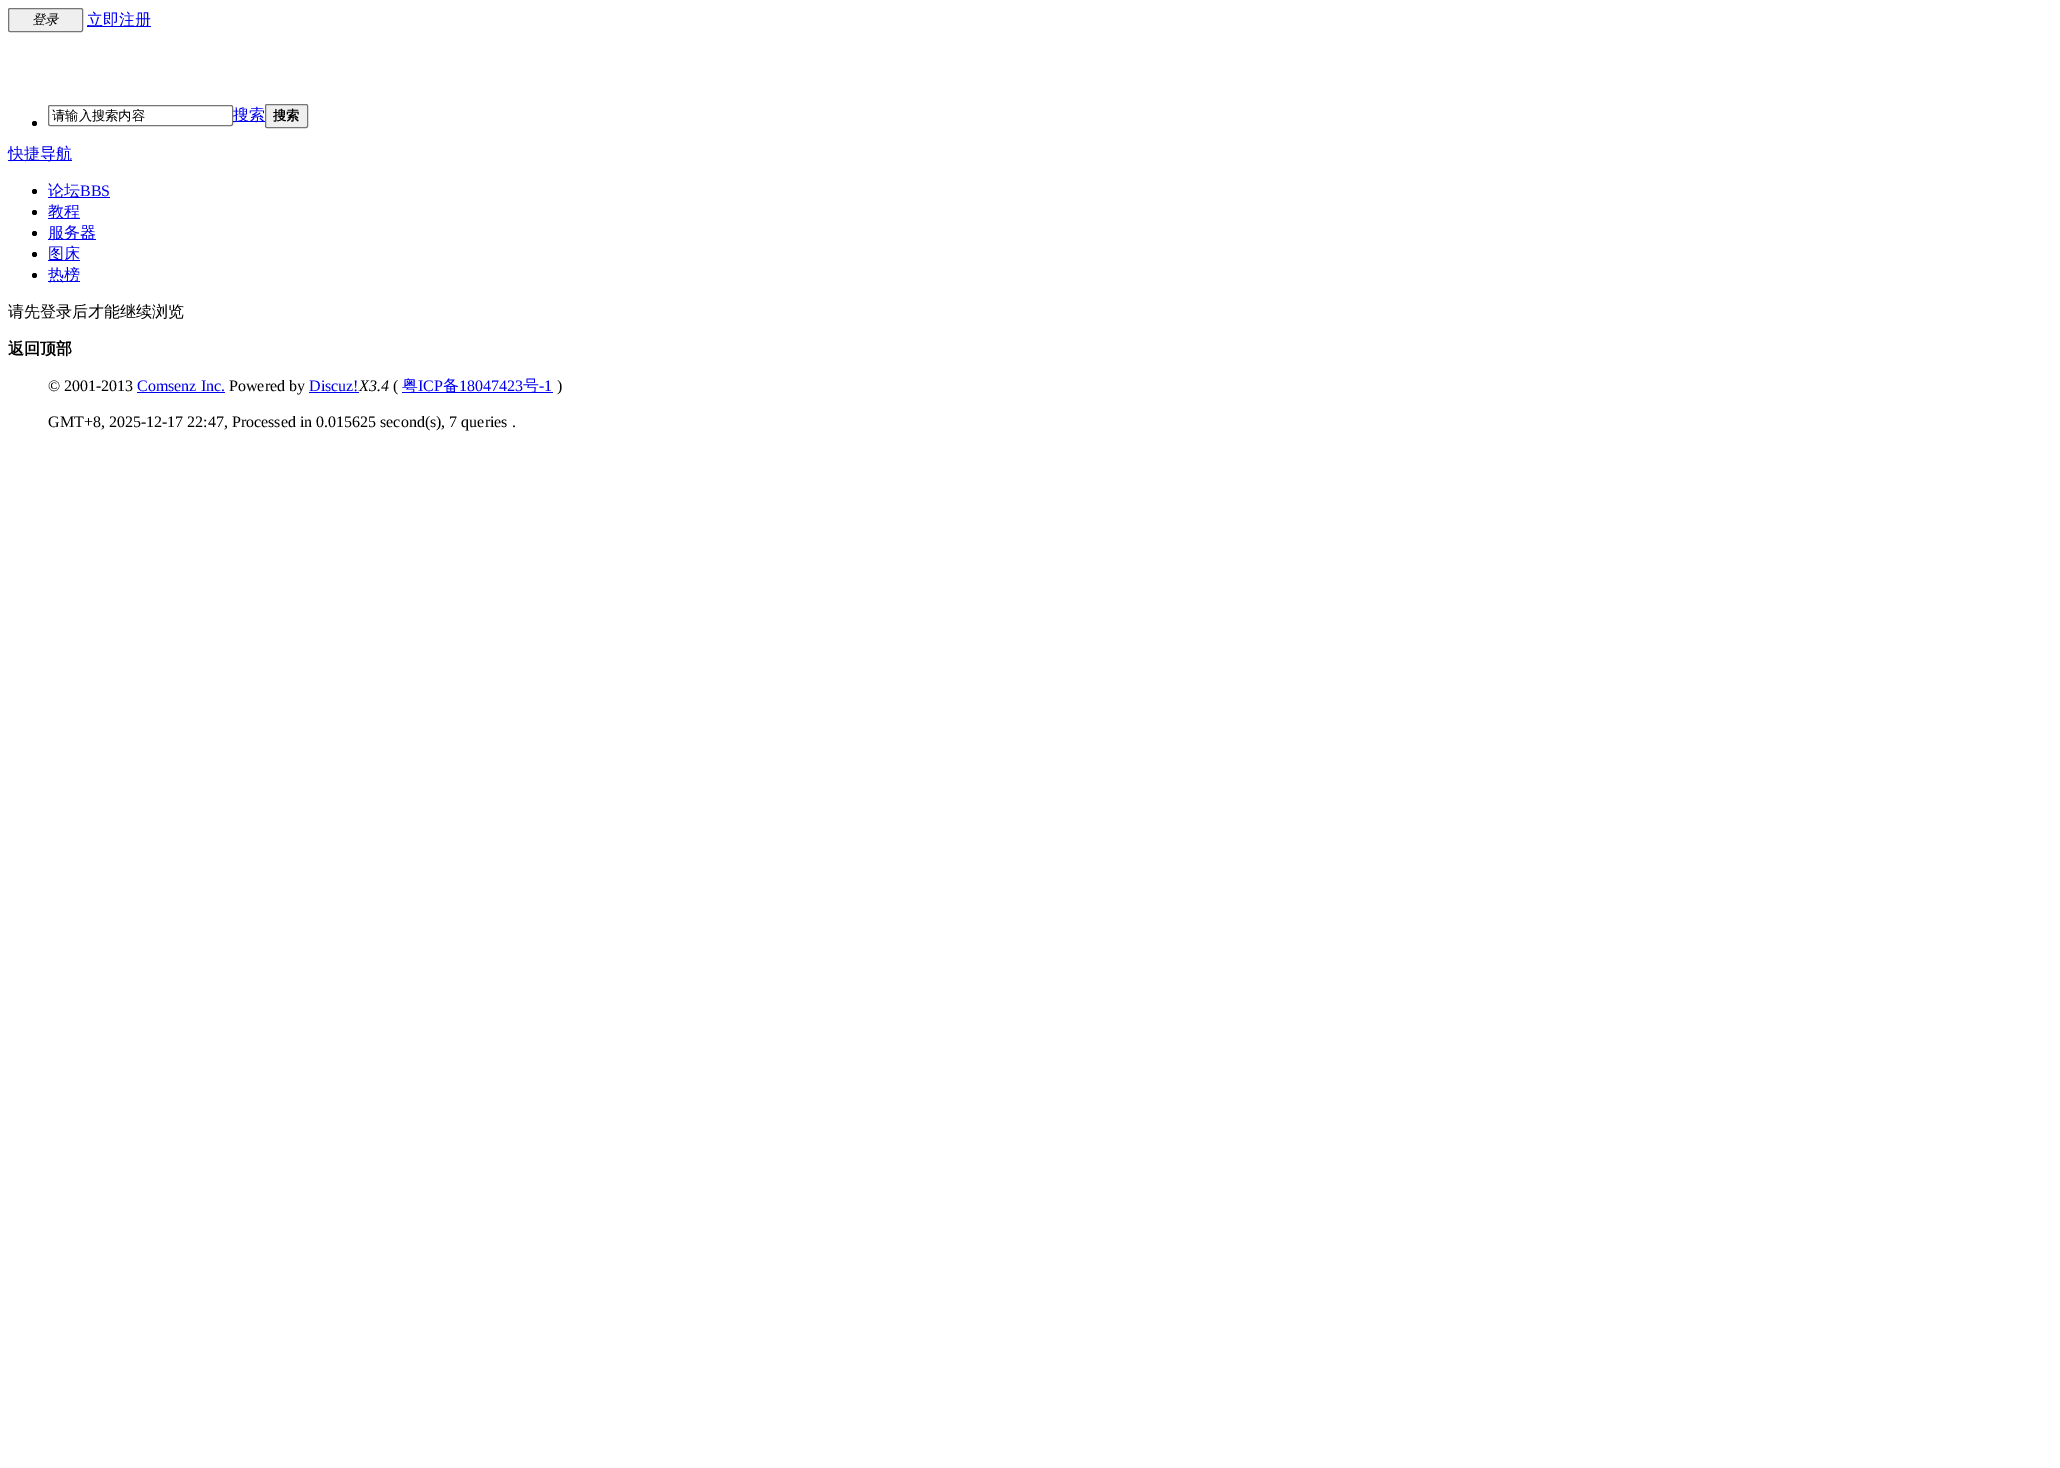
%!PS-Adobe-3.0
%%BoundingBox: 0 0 2060 1468
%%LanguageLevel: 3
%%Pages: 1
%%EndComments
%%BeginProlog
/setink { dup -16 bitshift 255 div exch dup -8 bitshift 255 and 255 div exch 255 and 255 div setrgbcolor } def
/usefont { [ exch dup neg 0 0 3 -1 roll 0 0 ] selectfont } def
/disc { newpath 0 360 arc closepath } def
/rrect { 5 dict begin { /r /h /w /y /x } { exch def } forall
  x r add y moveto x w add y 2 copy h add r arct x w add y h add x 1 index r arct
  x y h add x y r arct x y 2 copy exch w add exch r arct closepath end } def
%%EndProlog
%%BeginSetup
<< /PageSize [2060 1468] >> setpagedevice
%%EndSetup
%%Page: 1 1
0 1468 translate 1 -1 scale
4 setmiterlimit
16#FFFFFF setink
0 0 2060 1468 rectfill
16#EFEFEF setink
8.5 8.5 74 23 1.5 rrect gsave fill grestore
16#767676 setink
stroke
/WenQuanYiZenHei-MediumItalic 13.25 usefont
16#000000 setink
32 24 moveto (登录) show
16#0000EE setink
87 26 64 1 rectfill
/WenQuanYiZenHei-Medium 16 usefont
87 25 moveto (立即注册) show
16#767676 setink
48.5 105.5 184 20 1.5 rrect stroke
/WenQuanYiZenHei-Medium 13.25 usefont
16#000000 setink
52 120 moveto (请输入搜索内容) show
16#0000EE setink
233 121 32 1 rectfill
/WenQuanYiZenHei-Medium 16 usefont
233 120 moveto (搜索) show
16#EFEFEF setink
265.5 104.5 42 23 1.5 rrect gsave fill grestore
16#767676 setink
stroke
/WenQuanYiZenHei-Bold 13.25 usefont
16#000000 setink
273 120 moveto (搜索) show
34.5 123.5 2.5 disc fill
16#0000EE setink
8 160 64 1 rectfill
/WenQuanYiZenHei-Medium 16 usefont
8 159 moveto (快捷导航) show
16#000000 setink
34.5 191.5 2.5 disc fill
16#0000EE setink
48 197 62 1 rectfill
48 196 moveto (论坛) show
/LiberationSerif-Regular 16 usefont
80 196 moveto (BBS) show
16#000000 setink
34.5 212.5 2.5 disc fill
16#0000EE setink
48 218 32 1 rectfill
/WenQuanYiZenHei-Medium 16 usefont
48 217 moveto (教程) show
16#000000 setink
34.5 233.5 2.5 disc fill
16#0000EE setink
48 239 48 1 rectfill
48 238 moveto (服务器) show
16#000000 setink
34.5 254.5 2.5 disc fill
16#0000EE setink
48 260 32 1 rectfill
48 259 moveto (图床) show
16#000000 setink
34.5 275.5 2.5 disc fill
16#0000EE setink
48 281 32 1 rectfill
48 280 moveto (热榜) show
16#000000 setink
8 317 moveto (请先登录后才能继续浏览) show
/WenQuanYiZenHei-Bold 16 usefont
8 354 moveto (返回顶部) show
/LiberationSerif-Regular 16 usefont
48 391 moveto (© 2001-2013) show
16#0000EE setink
137 391 moveto (Comsenz Inc.) show
137 392 88 1 rectfill
16#000000 setink
229 391 moveto (Powered by) show
16#0000EE setink
309 391 moveto (Discuz!) show
309 392 50 1 rectfill
/LiberationSerif-Italic 16 usefont
16#000000 setink
359 391 moveto (X3.4) show
/LiberationSerif-Regular 16 usefont
393 391 moveto (\() show
16#0000EE setink
402 392 151 1 rectfill
/WenQuanYiZenHei-Medium 16 usefont
402 391 moveto (粤) show
/LiberationSerif-Regular 16 usefont
418 391 moveto (ICP) show
/WenQuanYiZenHei-Medium 16 usefont
443 391 moveto (备) show
/LiberationSerif-Regular 16 usefont
459 391 moveto (18047423) show
/WenQuanYiZenHei-Medium 16 usefont
523 391 moveto (号) show
/LiberationSerif-Regular 16 usefont
539 391 moveto (-1) show
16#000000 setink
557 391 moveto (\)) show
48 427 moveto (GMT+8, 2025-12-17 22:47, Processed in 0.015625 second\(s\), 7 queries .) show
showpage
%%EOF
